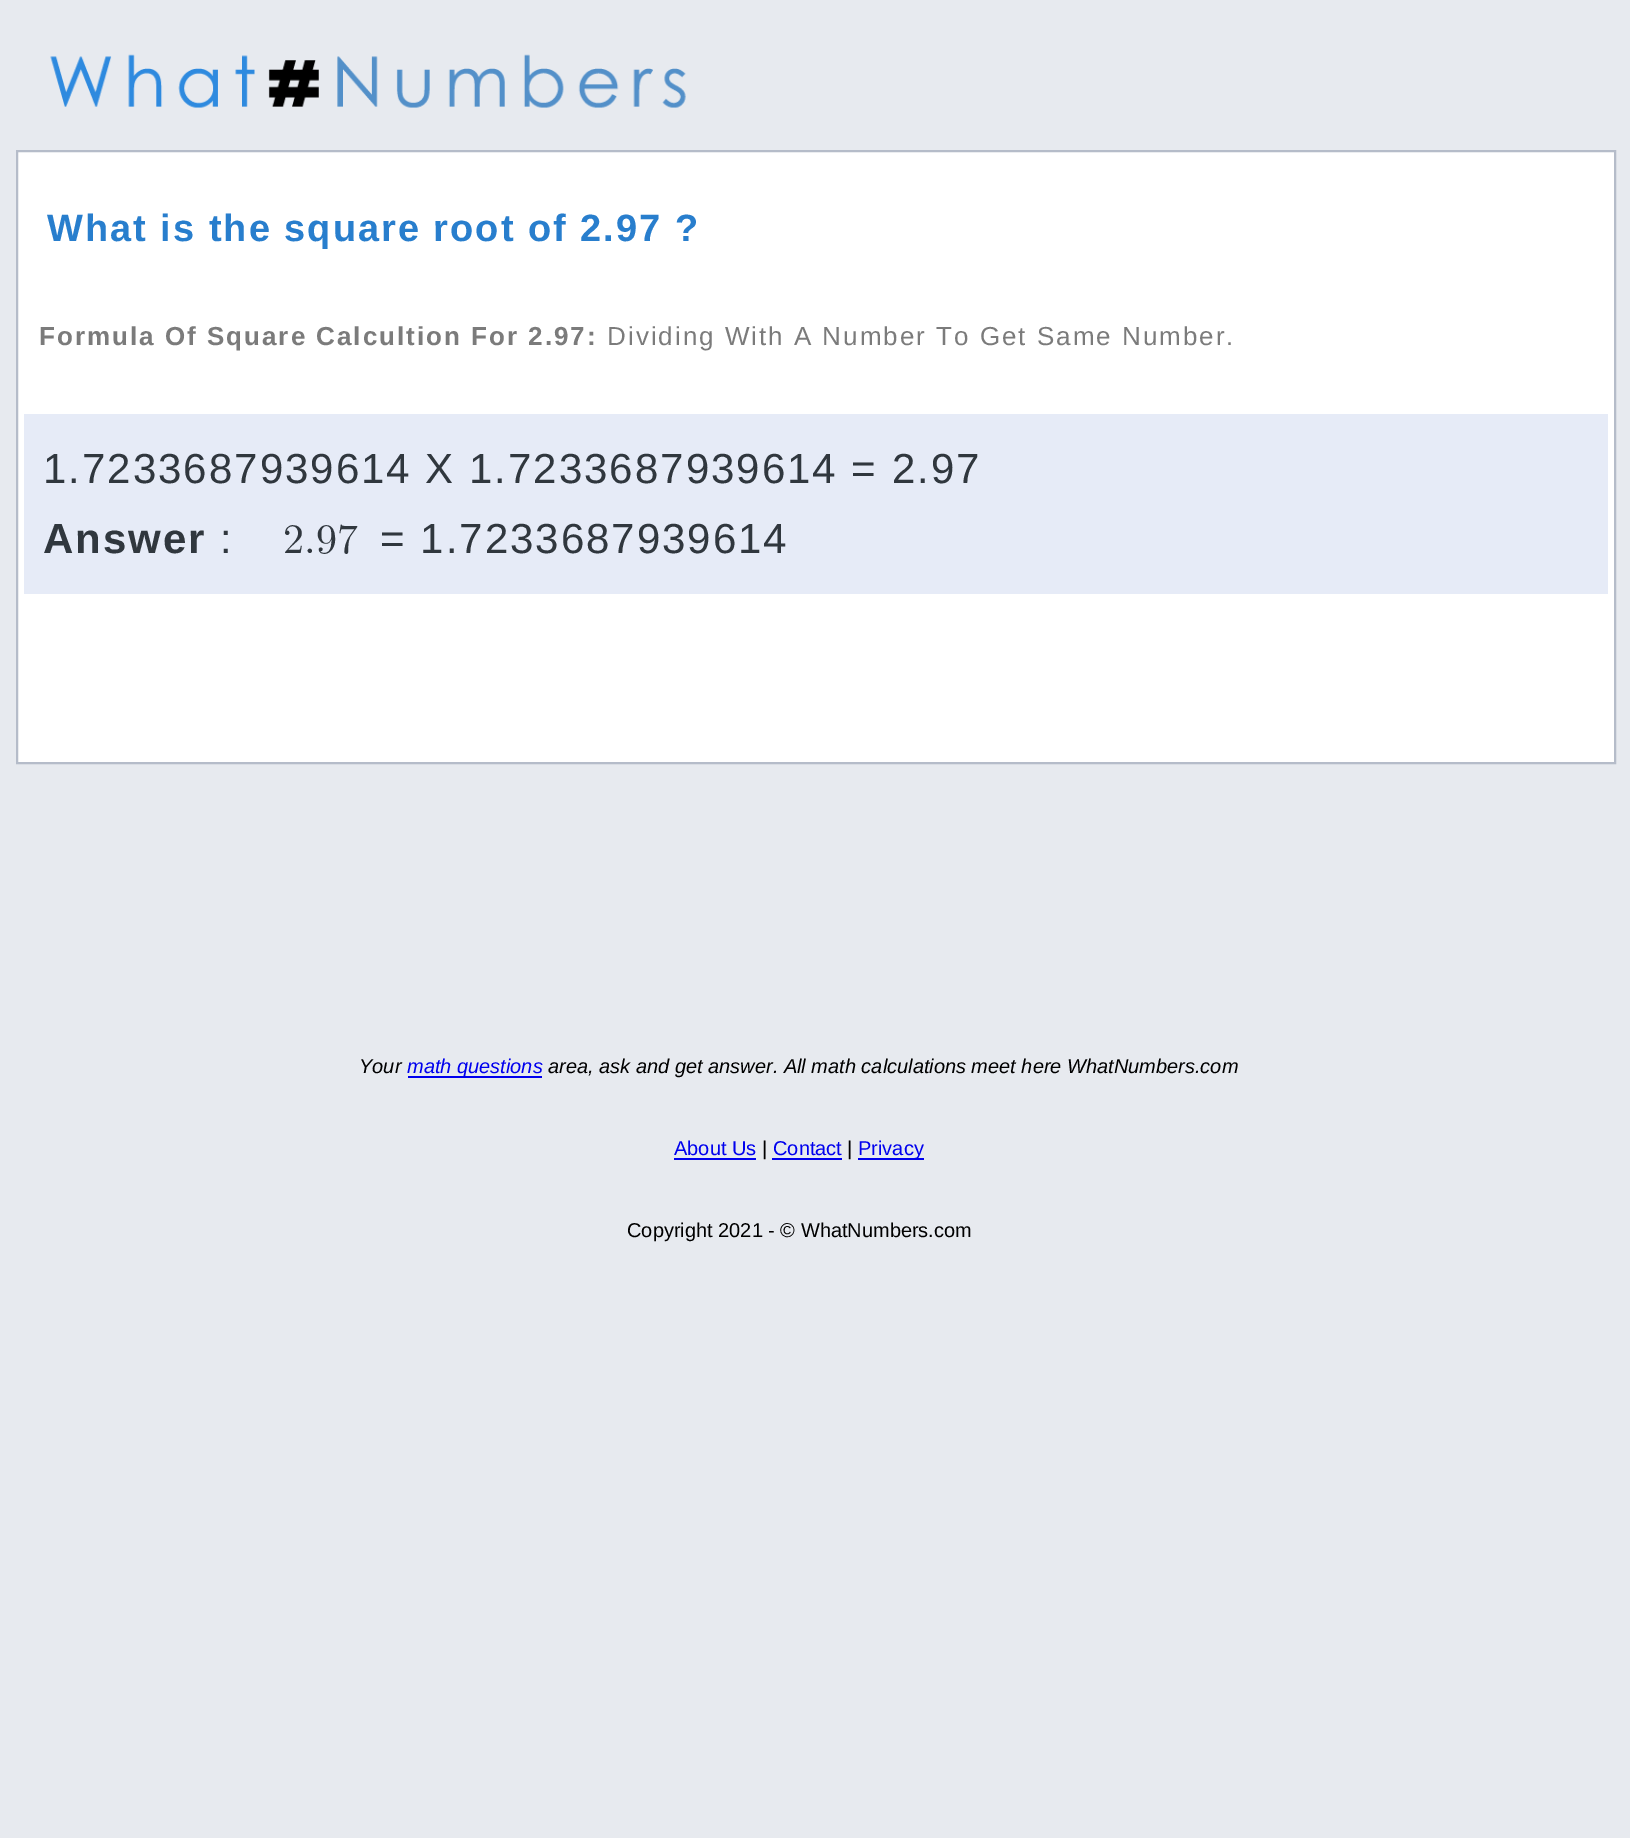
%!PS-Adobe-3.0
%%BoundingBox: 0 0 1630 1838
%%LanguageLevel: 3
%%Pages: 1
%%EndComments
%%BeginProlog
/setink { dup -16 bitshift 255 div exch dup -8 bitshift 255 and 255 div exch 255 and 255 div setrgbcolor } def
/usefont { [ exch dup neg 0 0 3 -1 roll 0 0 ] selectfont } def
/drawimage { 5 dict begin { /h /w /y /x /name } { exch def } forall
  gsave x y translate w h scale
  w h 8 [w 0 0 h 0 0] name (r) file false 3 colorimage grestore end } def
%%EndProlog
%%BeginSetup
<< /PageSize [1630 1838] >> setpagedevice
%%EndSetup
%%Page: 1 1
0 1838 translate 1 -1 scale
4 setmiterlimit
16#E7EAEF setink
0 0 1630 1838 rectfill
(img1.raw) 50 54 636 54 drawimage
16#FFFFFF setink
17 151 moveto 1615 151 lineto 1615 763 lineto 17 763 lineto closepath gsave fill grestore
16#B5BCC9 setink
2 setlinewidth
stroke
/LiberationSans-Bold 38 usefont
16#287ECD setink
47 241 moveto 2 0 (What is the square root of 2.97 ?) ashow
/LiberationSans-Bold 26 usefont
16#7B7B7B setink
39 345 moveto 2 0 (Formula Of Square Calcultion For 2.97:) ashow
/LiberationSans-Regular 26 usefont
607 345 moveto 2 0 (Dividing With A Number To Get Same Number.) ashow
16#E6EBF7 setink
24 414 1584 180 rectfill
/LiberationSans-Regular 42 usefont
16#30373E setink
43 483 moveto 2 0 (1.7233687939614 X 1.7233687939614 = 2.97) ashow
/LiberationSans-Bold 42 usefont
43 553 moveto 2 0 (Answer) ashow
/LiberationSans-Regular 42 usefont
220 553 moveto 2 0 (:) ashow
/LatinModernMath-Regular 42 usefont
283 553 moveto (2.97) show
/LiberationSans-Regular 42 usefont
380 553 moveto 2 0 (= 1.7233687939614) ashow
/LiberationSans-Italic 20 usefont
16#000000 setink
359 1073 moveto (Your) show
16#0000EE setink
408 1076 134 2 rectfill
407 1073 moveto (math questions) show
16#000000 setink
548 1073 moveto (area, ask and get answer. All math calculations meet here WhatNumbers.com) show
/LiberationSans-Regular 20 usefont
16#0000EE setink
674 1155 moveto (About Us) show
674 1158 82 2 rectfill
16#000000 setink
762 1155 moveto (|) show
16#0000EE setink
773 1155 moveto (Contact) show
772 1158 70 2 rectfill
16#000000 setink
847 1155 moveto (|) show
16#0000EE setink
858 1158 66 2 rectfill
858 1155 moveto (Privacy) show
16#000000 setink
627 1237 moveto (Copyright 2021 - © WhatNumbers.com) show
showpage
%%EOF
